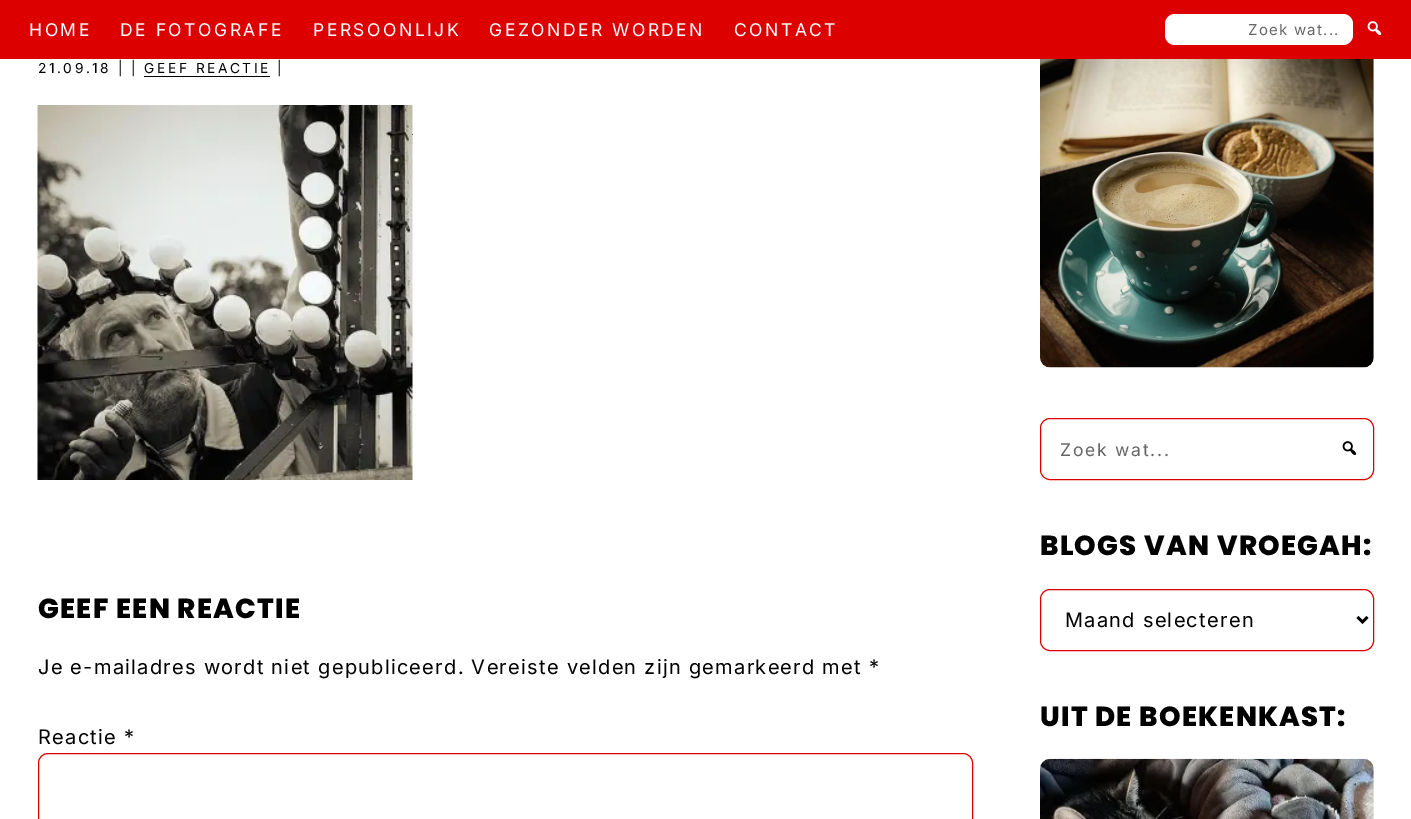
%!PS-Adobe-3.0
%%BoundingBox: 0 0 1411 819
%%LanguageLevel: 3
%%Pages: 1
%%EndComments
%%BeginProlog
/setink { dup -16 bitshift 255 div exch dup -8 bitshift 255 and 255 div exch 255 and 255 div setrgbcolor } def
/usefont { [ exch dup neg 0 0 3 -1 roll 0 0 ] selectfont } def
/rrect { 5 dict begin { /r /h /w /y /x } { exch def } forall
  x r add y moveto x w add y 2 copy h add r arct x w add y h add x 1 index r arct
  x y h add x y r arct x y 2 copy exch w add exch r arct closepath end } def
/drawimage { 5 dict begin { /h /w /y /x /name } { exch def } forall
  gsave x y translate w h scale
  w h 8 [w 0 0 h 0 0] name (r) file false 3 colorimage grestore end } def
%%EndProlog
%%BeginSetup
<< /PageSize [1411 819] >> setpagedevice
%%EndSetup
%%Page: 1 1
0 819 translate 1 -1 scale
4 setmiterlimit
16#FFFFFF setink
0 0 1411 819 rectfill
16#DD0000 setink
0 0 1411 59 rectfill
/Inter-Regular 17.5 usefont
16#FFFFFF setink
29 36 moveto 2.5 0 (HOME) ashow
120 36 moveto 2.5 0 (DE FOTOGRAFE) ashow
313 36 moveto 2.5 0 (PERSOONLIJK) ashow
489 36 moveto 2.5 0 (GEZONDER WORDEN) ashow
734 36 moveto 2.5 0 (CONTACT) ashow
1165 14 188 31 10 rrect fill
/Inter-Regular 15 usefont
16#666666 setink
1248 35 moveto 1.25 0 (Zoek wat...) ashow
(img1.raw) 1367 21 15 14 drawimage
/Inter-Regular 13.75 usefont
16#000000 setink
38 73 moveto 2.5 0 (21.09.18 | | GEEF REACTIE |) ashow
144 76 126 1 rectfill
412 134 1 1 rectfill
(img2.raw) 37 105 376 375 drawimage
/Poppins-ExtraBold 27.5 usefont
38 618 moveto 1.25 0 (GEEF EEN REACTIE) ashow
/Inter-Regular 20 usefont
38 674 moveto 1.25 0 (Je e-mailadres wordt niet gepubliceerd. Vereiste velden zijn gemarkeerd met *) ashow
38 744 moveto 1.25 0 (Reactie *) ashow
16#DD0000 setink
38.5 753.5 934 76 9.5 rrect stroke
(img3.raw) 1040 59 334 309 drawimage
1040.5 418.5 333 61 9.5 rrect stroke
/Inter-Regular 17.5 usefont
16#666666 setink
1060 456 moveto 1.75 0 (Zoek wat...) ashow
(img4.raw) 1342 441 15 14 drawimage
/Poppins-ExtraBold 27.5 usefont
16#000000 setink
1040 555 moveto 1.25 0 (BLOGS VAN VROEGAH:) ashow
16#DD0000 setink
1040.5 589.5 333 61 9.5 rrect stroke
16#000000 setink
2.5 setlinewidth
1357.5 617 moveto 1362.5 622 lineto 1367.5 617 lineto stroke
/Inter-Regular 20 usefont
1065 627 moveto 1.25 0 (Maand selecteren) ashow
/Poppins-ExtraBold 27.5 usefont
1040 726 moveto 1.25 0 (UIT DE BOEKENKAST:) ashow
(img5.raw) 1040 758 334 61 drawimage
showpage
%%EOF
